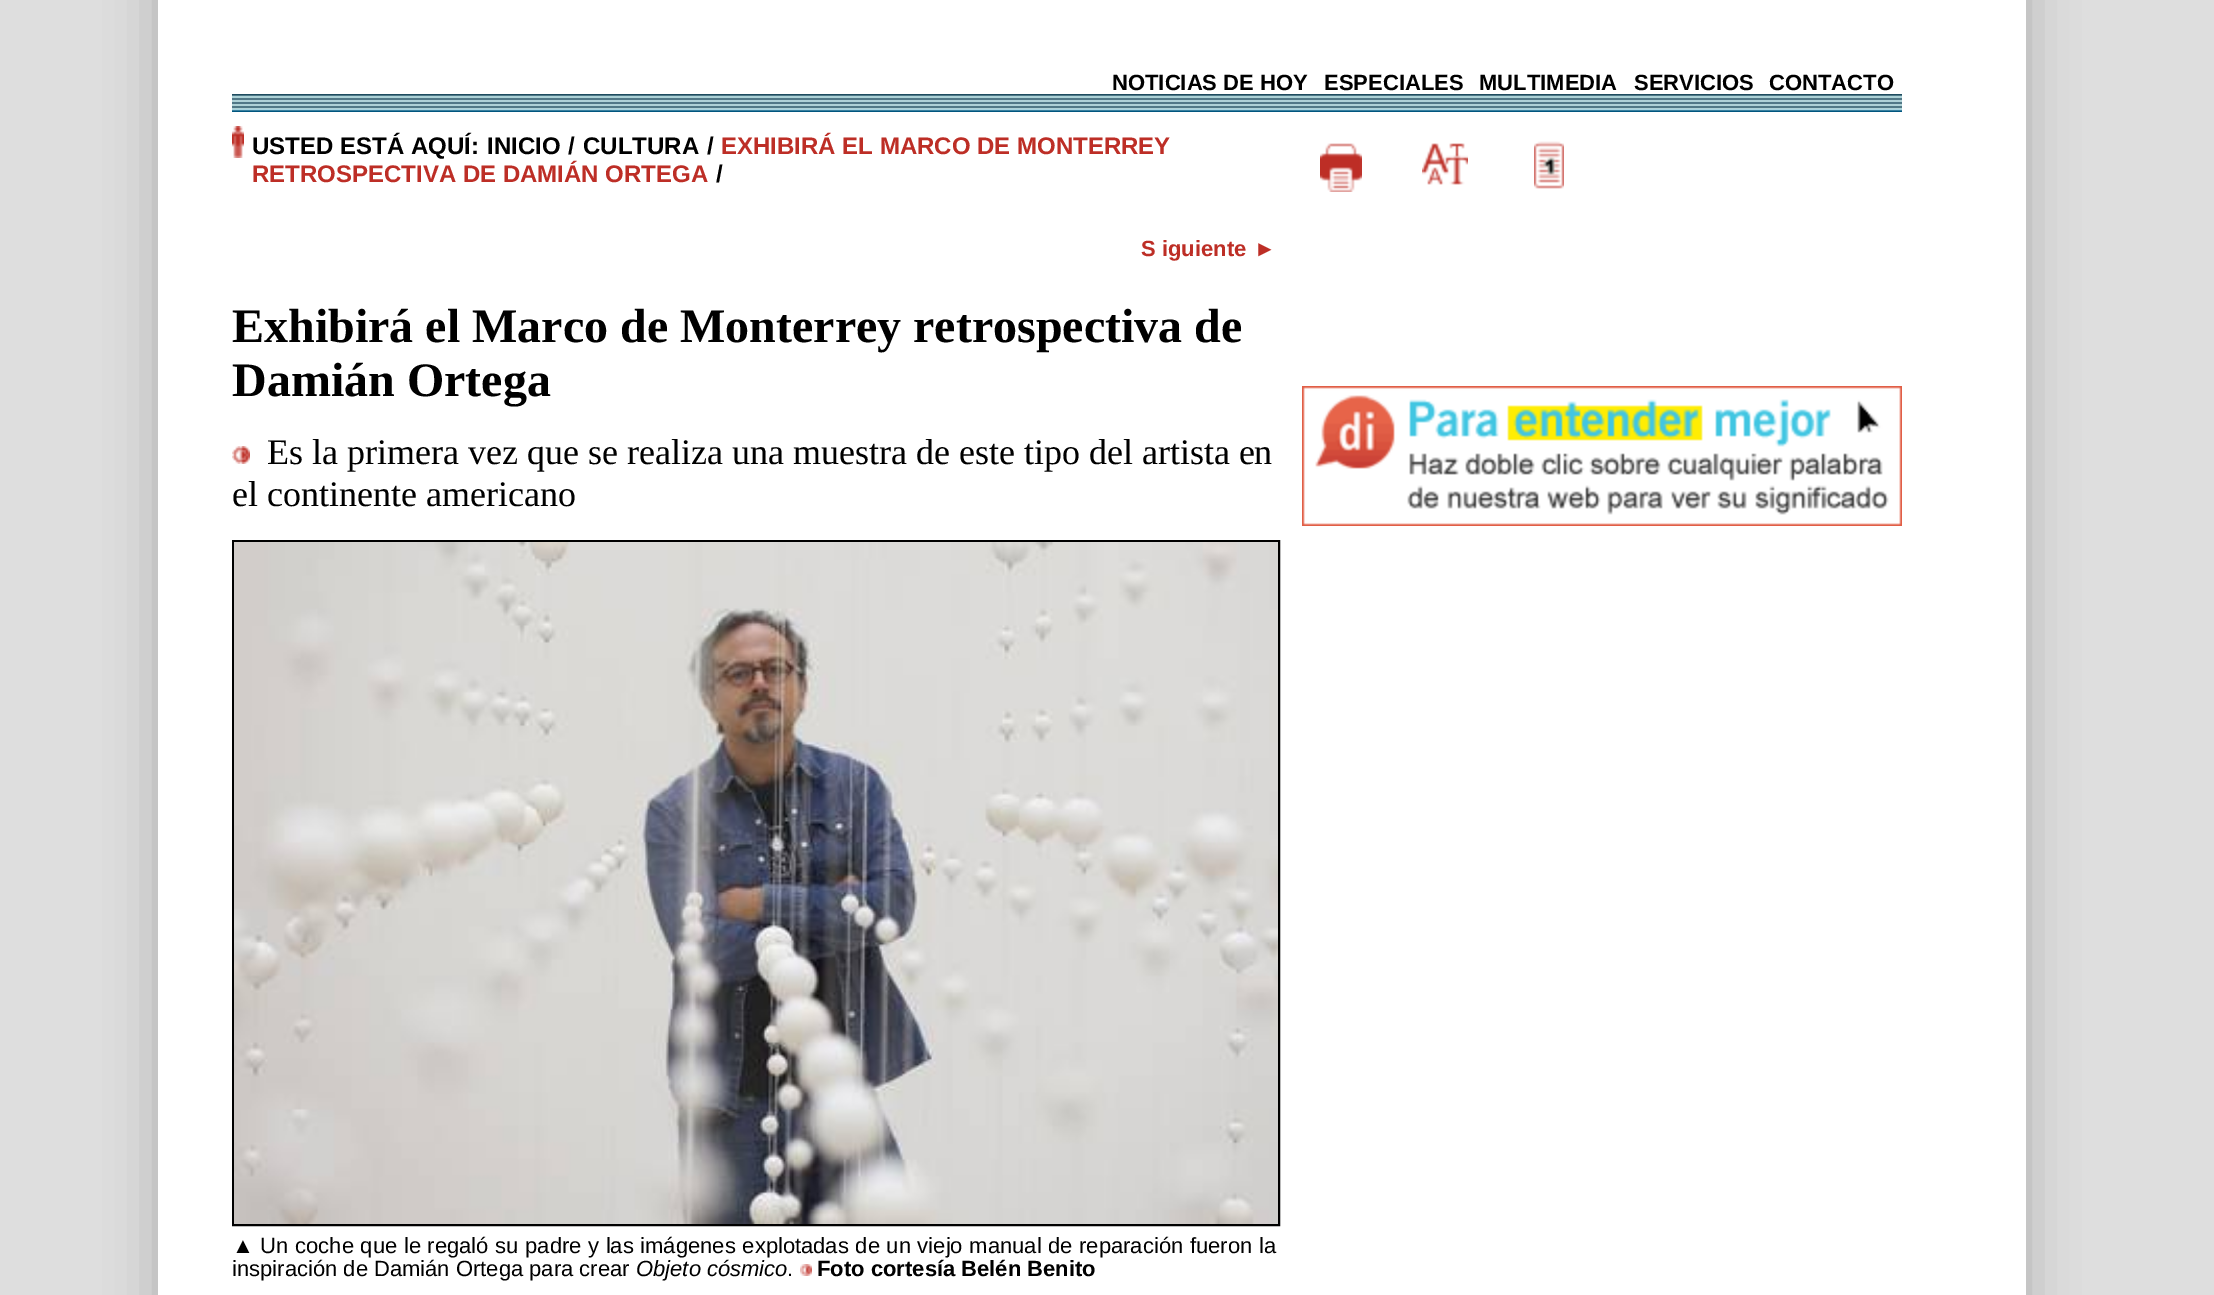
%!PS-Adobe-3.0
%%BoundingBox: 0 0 2214 1295
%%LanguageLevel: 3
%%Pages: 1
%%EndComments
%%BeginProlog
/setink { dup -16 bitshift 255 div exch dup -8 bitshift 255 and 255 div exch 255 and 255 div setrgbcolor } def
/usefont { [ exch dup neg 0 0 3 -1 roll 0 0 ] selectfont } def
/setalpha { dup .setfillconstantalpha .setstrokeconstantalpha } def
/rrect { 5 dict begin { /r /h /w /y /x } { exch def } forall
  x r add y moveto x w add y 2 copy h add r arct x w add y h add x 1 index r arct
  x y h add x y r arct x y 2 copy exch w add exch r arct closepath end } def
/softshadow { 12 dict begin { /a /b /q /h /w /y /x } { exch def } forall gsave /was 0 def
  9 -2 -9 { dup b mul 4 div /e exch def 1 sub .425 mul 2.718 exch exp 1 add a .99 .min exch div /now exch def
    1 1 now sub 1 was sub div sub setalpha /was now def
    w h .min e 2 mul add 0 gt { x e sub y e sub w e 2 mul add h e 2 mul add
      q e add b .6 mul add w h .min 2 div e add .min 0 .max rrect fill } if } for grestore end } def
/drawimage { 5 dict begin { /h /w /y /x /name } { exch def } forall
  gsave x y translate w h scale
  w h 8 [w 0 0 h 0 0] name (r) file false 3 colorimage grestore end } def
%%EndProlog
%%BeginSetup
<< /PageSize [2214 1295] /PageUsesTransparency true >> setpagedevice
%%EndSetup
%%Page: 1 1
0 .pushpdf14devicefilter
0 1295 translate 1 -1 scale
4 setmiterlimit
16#DEDEDE setink
0 0 2214 1295 rectfill
16#AAAAAA setink
158 -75 1868 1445 0 25 1 softshadow
16#FFFFFF setink
158 0 1868 1295 rectfill
/LiberationSans-Bold 22 usefont
16#000000 setink
[
    [(NOTICIAS DE HOY) 1112 90]
    [(ESPECIALES) 1324 90]
    [(MULTIMEDIA) 1479 90]
    [(SERVICIOS) 1634 90]
    [(CONTACTO) 1769 90]
] { aload pop moveto show } forall
(img1.raw) 232 94 1670 18 drawimage
(img2.raw) 232 126 12 32 drawimage
/LiberationSans-Bold 24 usefont
[
    [(USTED ESTÁ AQUÍ:) 252 154]
    [(INICIO) 487 154]
    [(/) 568 154]
    [(CULTURA) 583 154]
    [(/) 707 154]
] { aload pop moveto show } forall
16#BD2E26 setink
721 154 moveto (EXHIBIRÁ EL MARCO DE MONTERREY) show
252 182 moveto (RETROSPECTIVA DE DAMIÁN ORTEGA) show
16#000000 setink
716 182 moveto (/) show
(img3.raw) 1320 143 42 49 drawimage
(img4.raw) 1422 143 46 42 drawimage
(img5.raw) 1534 141 30 48 drawimage
(img6.raw) 1302 386 600 140 drawimage
/LiberationSans-Bold 22 usefont
16#BD2E26 setink
1141 256 moveto (S iguiente) show
1254 256 moveto (►) show
/LiberationSerif-Bold 48 usefont
16#000000 setink
232 342 moveto (Exhibirá el Marco de Monterrey retrospectiva de) show
232 396 moveto (Damián Ortega) show
(img7.raw) 232 446 18 18 drawimage
/LiberationSerif-Regular 36 usefont
267 464 moveto (Es la primera vez que se realiza una muestra de este tipo del artista en) show
232 506 moveto (el continente americano) show
2 setlinewidth
233 541 1046 684 rectstroke
(img8.raw) 234 542 1044 682 drawimage
/LiberationSans-Regular 22 usefont
232 1253 moveto 0.5 0 32 (▲ Un coche que le regaló su padre y las imágenes explotadas de un viejo manual de reparación fueron la) widthshow
232 1276 moveto (inspiración de Damián Ortega para crear) show
/LiberationSans-Italic 22 usefont
636 1276 moveto (Objeto cósmico) show
/LiberationSans-Regular 22 usefont
787 1276 moveto (.) show
(img9.raw) 800 1264 12 12 drawimage
/LiberationSans-Bold 22 usefont
817 1276 moveto (Foto cortesía Belén Benito) show
.poppdf14devicefilter showpage
%%EOF
